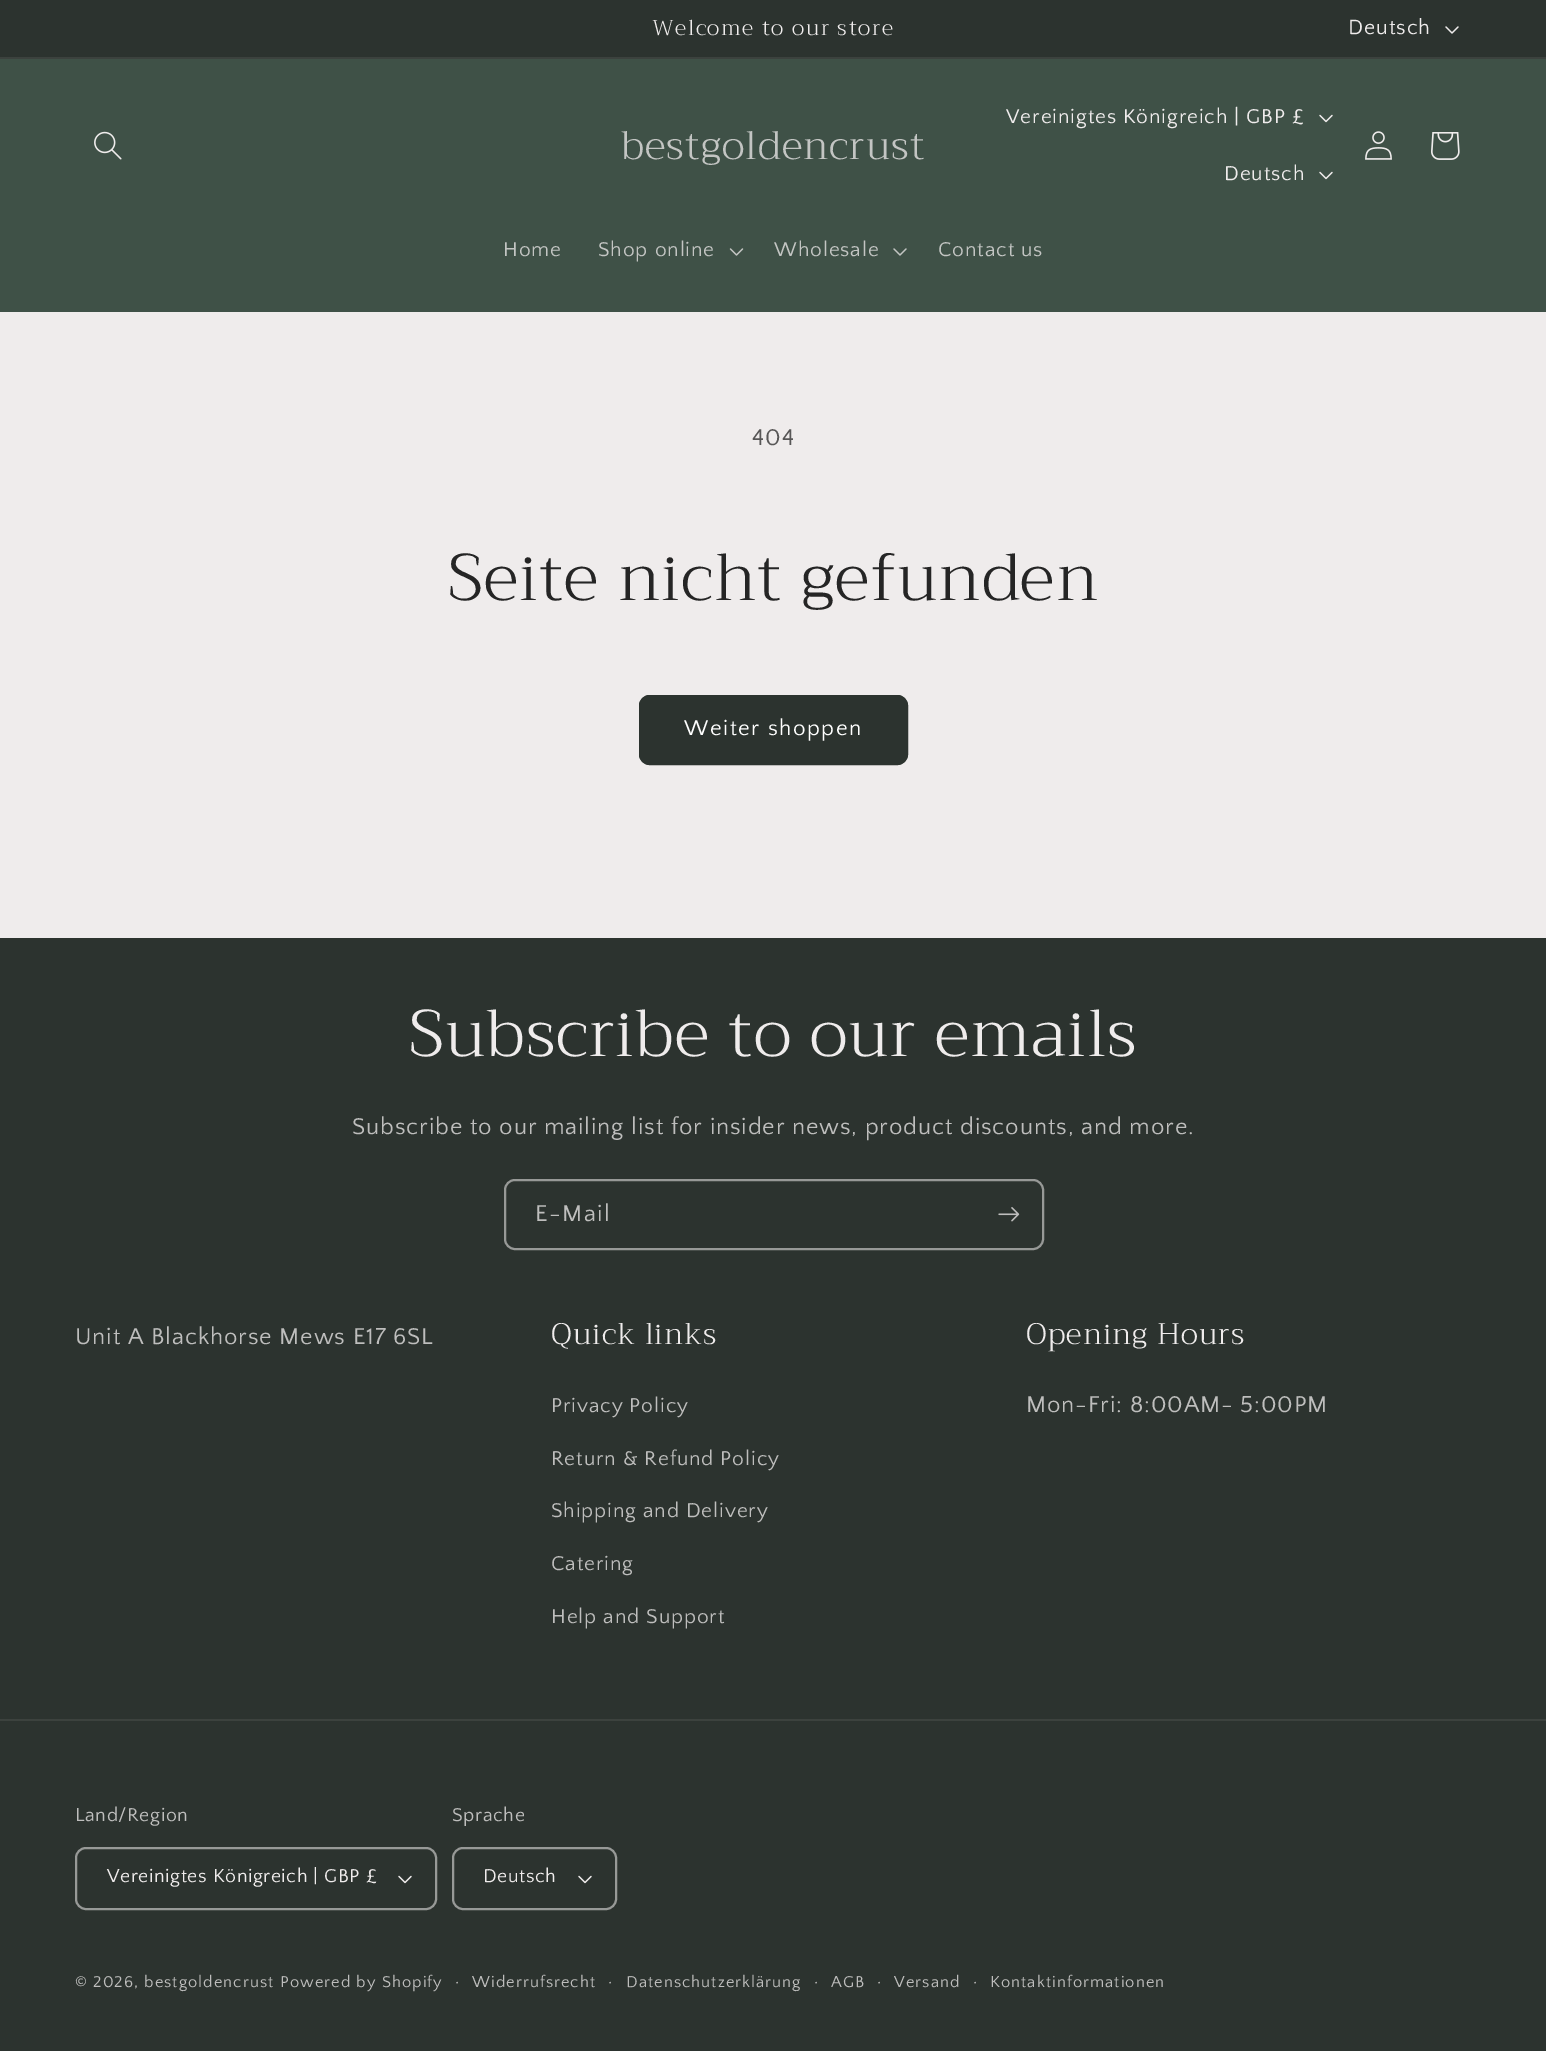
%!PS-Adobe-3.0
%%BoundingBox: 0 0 1546 2051
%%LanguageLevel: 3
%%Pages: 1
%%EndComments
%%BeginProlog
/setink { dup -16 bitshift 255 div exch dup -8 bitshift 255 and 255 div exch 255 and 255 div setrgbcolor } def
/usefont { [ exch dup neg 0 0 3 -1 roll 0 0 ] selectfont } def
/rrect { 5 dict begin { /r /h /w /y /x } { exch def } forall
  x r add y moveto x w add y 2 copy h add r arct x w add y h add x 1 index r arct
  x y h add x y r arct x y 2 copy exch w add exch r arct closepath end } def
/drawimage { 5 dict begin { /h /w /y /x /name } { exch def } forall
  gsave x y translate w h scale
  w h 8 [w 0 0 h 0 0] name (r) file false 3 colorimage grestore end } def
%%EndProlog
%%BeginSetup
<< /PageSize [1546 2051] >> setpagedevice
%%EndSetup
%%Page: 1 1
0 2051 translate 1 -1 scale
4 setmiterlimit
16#EFECEC setink
0 0 1546 2051 rectfill
16#2C332F setink
0 0 1546 57 rectfill
16#3C423E setink
0 57 1546 2 rectfill
/Trirong-Light 21.5 usefont
16#EFECEC setink
652 35 moveto 1.5 0 (Welcome to our store) ashow
/QuattrocentoSans-Regular 21.5 usefont
1348 34 moveto 0.9 0 (Deutsch) ashow
(img1.raw) 1445 26 14 8 drawimage
16#3F5147 setink
0 59 1546 253 rectfill
(img2.raw) 94 131 28 29 drawimage
/Trirong-Light 39.5 usefont
16#C3C5C3 setink
621 159 moveto 1 0 (bestgoldencrust) ashow
/QuattrocentoSans-Regular 21 usefont
16#EFECEC setink
1006 123 moveto 0.9 0 (Vereinigtes Königreich | GBP £) ashow
(img3.raw) 1319 114 14 9 drawimage
1224 180 moveto 0.9 0 (Deutsch) ashow
(img3.raw) 1319 171 14 9 drawimage
(img4.raw) 1365 131 27 29 drawimage
(img5.raw) 1431 132 29 28 drawimage
16#C3C5C3 setink
503 256 moveto 0.9 0 (Home) ashow
598 256 moveto 0.9 0 (Shop online) ashow
(img6.raw) 729 248 15 8 drawimage
774 256 moveto 0.9 0 (Wholesale) ashow
(img7.raw) 893 248 14 8 drawimage
938 256 moveto 0.9 0 (Contact us) ashow
/QuattrocentoSans-Regular 24 usefont
16#585757 setink
752 445 moveto 0.9 0 (404) ashow
/Trirong-Light 66 usefont
16#252525 setink
448 600 moveto 1 0 (Seite nicht gefunden) ashow
16#2C332F setink
639 695 269 70 11 rrect fill
2 setlinewidth
640 696 267 68 10 rrect stroke
/QuattrocentoSans-Regular 22.5 usefont
16#FFFFFF setink
684 735 moveto 1.5 0 (Weiter shoppen) ashow
16#2C332F setink
0 938 1546 1113 rectfill
/Trirong-Light 66 usefont
16#EFECEC setink
409 1056 moveto 1 0 (Subscribe to our emails) ashow
/QuattrocentoSans-Regular 24 usefont
16#BEBEBD setink
352 1134 moveto 0.9 0 (Subscribe to our mailing list for insider news, product discounts, and more.) ashow
16#979997 setink
505 1180 538 69 10 rrect stroke
16#BEBEBD setink
535 1221 moveto 1.5 0 (E-Mail) ashow
(img8.raw) 998 1207 22 15 drawimage
75 1344 moveto 0.9 0 (Unit A Blackhorse Mews E17 6SL) ashow
/Trirong-Light 29.75 usefont
16#EFECEC setink
551 1344 moveto 1 0 (Quick links) ashow
/QuattrocentoSans-Regular 21 usefont
16#BEBEBD setink
551 1412 moveto 0.9 0 (Privacy Policy) ashow
551 1465 moveto 0.9 0 (Return & Refund Policy) ashow
551 1517 moveto 0.9 0 (Shipping and Delivery) ashow
551 1570 moveto 0.9 0 (Catering) ashow
551 1623 moveto 0.9 0 (Help and Support) ashow
/Trirong-Light 29.75 usefont
16#EFECEC setink
1026 1344 moveto 1 0 (Opening Hours) ashow
/QuattrocentoSans-Regular 24 usefont
16#BEBEBD setink
1026 1412 moveto 0.9 0 (Mon-Fri: 8:00AM- 5:00PM) ashow
16#3C423E setink
0 1719 1546 2 rectfill
/QuattrocentoSans-Regular 19.5 usefont
16#BEBEBD setink
75 1821 moveto 0.6 0 (Land/Region) ashow
(img9.raw) 398 1875 14 9 drawimage
16#979997 setink
76 1848 360 61 10 rrect stroke
16#EFECEC setink
107 1882 moveto 0.6 0 (Vereinigtes Königreich | GBP £) ashow
16#BEBEBD setink
452 1821 moveto 0.6 0 (Sprache) ashow
(img9.raw) 578 1875 14 9 drawimage
16#979997 setink
453 1848 163 61 10 rrect stroke
16#EFECEC setink
483 1882 moveto 0.6 0 (Deutsch) ashow
/QuattrocentoSans-Regular 16.5 usefont
16#BEBEBD setink
75 1987 moveto 1.05 0 (© 2026, bestgoldencrust) ashow
280 1987 moveto 1.05 0 (Powered by Shopify) ashow
/QuattrocentoSans-Regular 18 usefont
455 1987 moveto 1.05 0 (·) ashow
/QuattrocentoSans-Regular 16.5 usefont
472 1987 moveto 1.05 0 (Widerrufsrecht) ashow
/QuattrocentoSans-Regular 18 usefont
608 1987 moveto 1.05 0 (·) ashow
/QuattrocentoSans-Regular 16.5 usefont
626 1987 moveto 1.05 0 (Datenschutzerklärung) ashow
/QuattrocentoSans-Regular 18 usefont
814 1987 moveto 1.05 0 (·) ashow
/QuattrocentoSans-Regular 16.5 usefont
831 1987 moveto 1.05 0 (AGB) ashow
/QuattrocentoSans-Regular 18 usefont
877 1987 moveto 1.05 0 (·) ashow
/QuattrocentoSans-Regular 16.5 usefont
894 1987 moveto 1.05 0 (Versand) ashow
/QuattrocentoSans-Regular 18 usefont
973 1987 moveto 1.05 0 (·) ashow
/QuattrocentoSans-Regular 16.5 usefont
990 1987 moveto 1.05 0 (Kontaktinformationen) ashow
showpage
%%EOF
